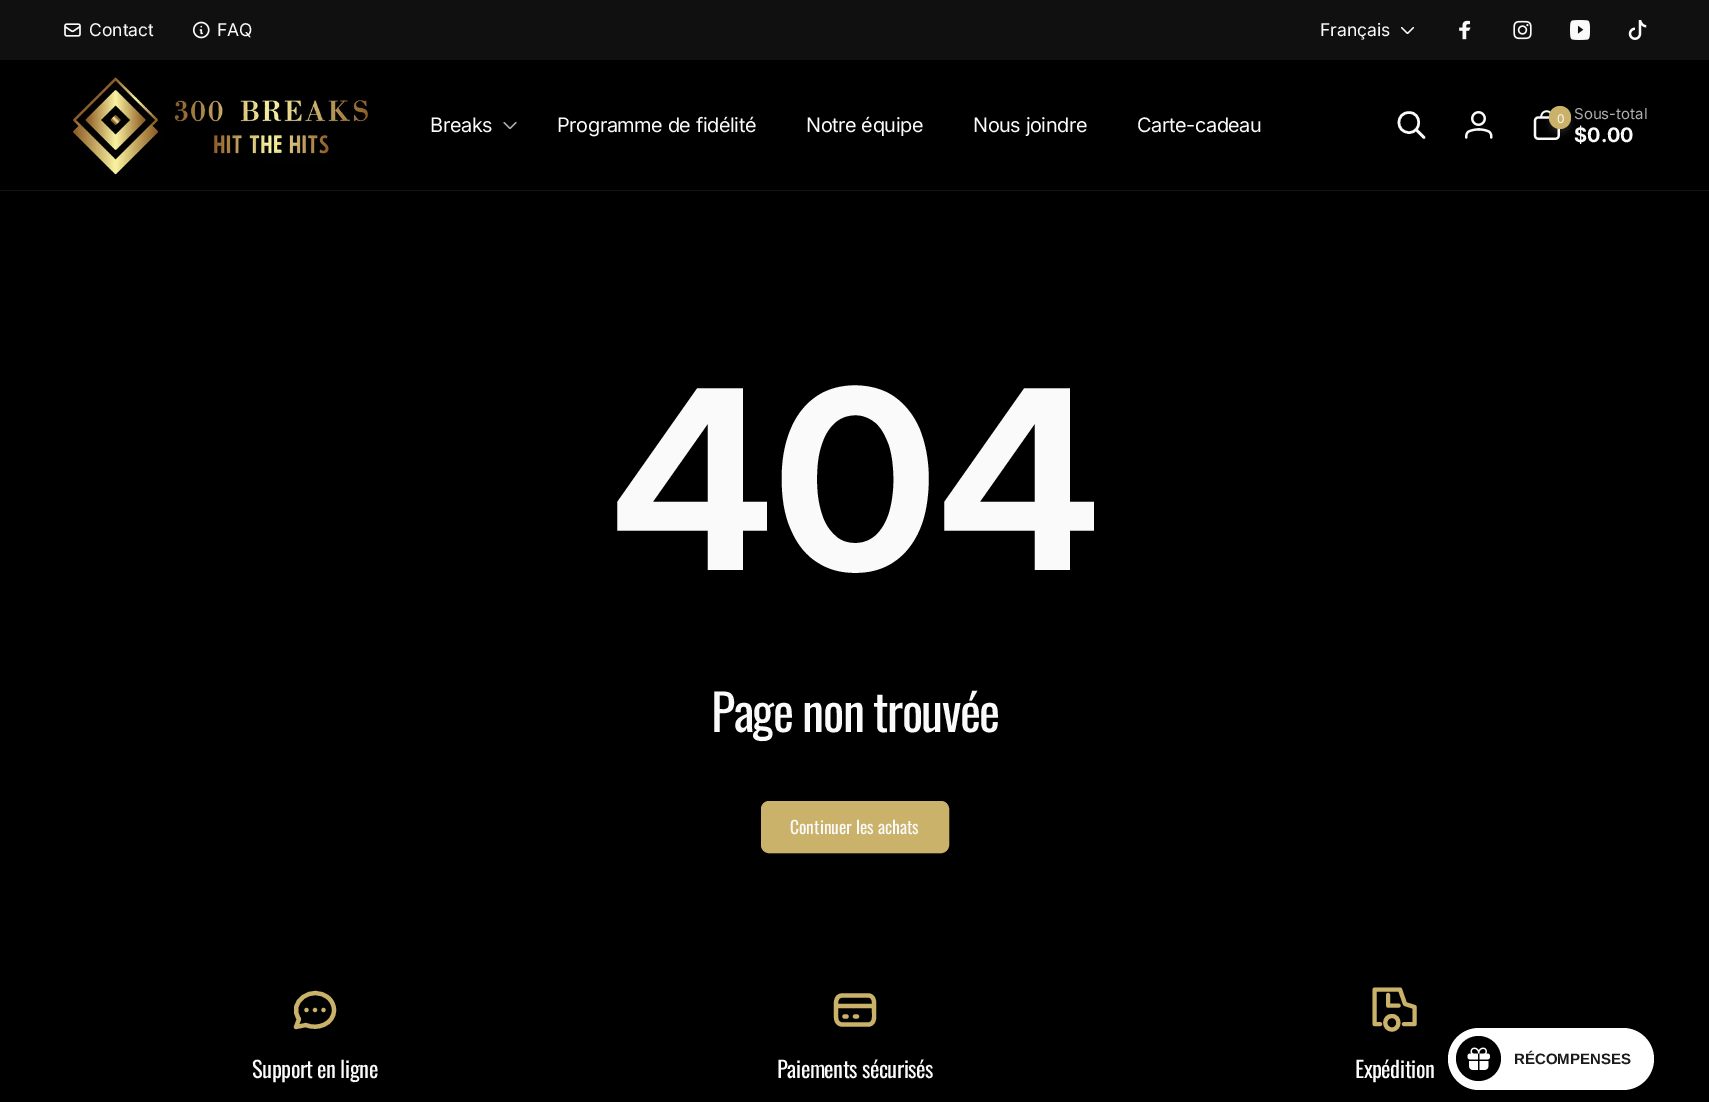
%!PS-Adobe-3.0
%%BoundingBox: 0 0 1709 1102
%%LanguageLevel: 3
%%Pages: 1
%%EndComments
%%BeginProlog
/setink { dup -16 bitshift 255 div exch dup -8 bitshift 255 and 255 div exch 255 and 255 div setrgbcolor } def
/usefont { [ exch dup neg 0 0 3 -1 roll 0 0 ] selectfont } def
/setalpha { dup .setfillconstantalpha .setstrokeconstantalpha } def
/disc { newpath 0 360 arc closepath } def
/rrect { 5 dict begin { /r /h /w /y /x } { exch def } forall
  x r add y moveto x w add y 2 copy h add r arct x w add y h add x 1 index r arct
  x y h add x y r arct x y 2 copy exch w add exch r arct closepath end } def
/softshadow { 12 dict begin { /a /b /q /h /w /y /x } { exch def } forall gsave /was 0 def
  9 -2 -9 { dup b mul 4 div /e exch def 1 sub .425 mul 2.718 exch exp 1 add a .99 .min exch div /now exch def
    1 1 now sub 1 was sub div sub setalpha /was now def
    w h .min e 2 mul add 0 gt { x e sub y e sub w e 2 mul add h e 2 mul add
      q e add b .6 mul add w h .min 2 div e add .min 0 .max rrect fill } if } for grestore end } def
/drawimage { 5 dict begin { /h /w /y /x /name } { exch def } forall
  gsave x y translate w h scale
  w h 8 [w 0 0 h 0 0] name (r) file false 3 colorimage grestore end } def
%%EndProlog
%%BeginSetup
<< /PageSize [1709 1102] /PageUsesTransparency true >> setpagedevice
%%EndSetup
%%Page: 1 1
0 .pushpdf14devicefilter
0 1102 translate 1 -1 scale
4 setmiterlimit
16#000000 setink
0 0 1709 1102 rectfill
16#101010 setink
0 0 1709 60 rectfill
(img1.raw) 64 23 17 14 drawimage
/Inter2-Regular 17.5 usefont
16#FAFAFA setink
89 36 moveto (Contact) show
(img2.raw) 192 21 18 18 drawimage
217 36 moveto (FAQ) show
1320 36 moveto (Français) show
1.2 setlinewidth
1 setlinecap
1 setlinejoin
1413.5 27.5 moveto 1407.5 33.5 lineto 1401.5 27.5 lineto stroke
(img3.raw) 1459 20 12 20 drawimage
(img4.raw) 1513 20 19 20 drawimage
(img5.raw) 1570 20 20 20 drawimage
(img6.raw) 1628 20 19 20 drawimage
16#141414 setink
0 190 1709 1 rectfill
(img7.raw) 72 77 296 98 drawimage
/Inter-Regular 20 usefont
16#FAFAFA setink
430 132 moveto -0.4 0 (Breaks) ashow
16#AFAFAF setink
516 122.5 moveto 510 128.5 lineto 504 122.5 lineto stroke
16#FAFAFA setink
557 132 moveto -0.4 0 (Programme de fidélité) ashow
806 132 moveto -0.4 0 (Notre équipe) ashow
973 132 moveto -0.4 0 (Nous joindre) ashow
1137 132 moveto -0.4 0 (Carte-cadeau) ashow
2.5 setlinewidth
1424 137.5 moveto 1416 129.5 lineto 1409 132.5 moveto 1422 132.5 1422 112.5 1409 112.5 curveto 1395.5 112.5 1395.5 132.5 1409 132.5 curveto closepath stroke
(img8.raw) 1465 111 28 28 drawimage
(img9.raw) 1533 110 27 30 drawimage
1550 110 20 20 10 2.5 0.06 softshadow
1550 113 20 20 10 4 0.1 softshadow
16#CBB26A setink
1549 106 22 23 11 rrect fill
/Inter2-Regular 12 usefont
16#FAFAFA setink
1557 123 moveto (0) show
/Inter2-Regular 15 usefont
16#AFAFAF setink
1574 119 moveto (Sous-total) show
/Inter2-Bold 20 usefont
16#FAFAFA setink
1574 142 moveto ($0.00) show
/Inter-Bold 250 usefont
610 570 moveto (404) show
/Oswald-Regular 50 usefont
711 732 moveto -1.5 0 (Page non trouvée) ashow
761 803 188 51 8 1 0.05 softshadow
16#CBB26A setink
761.5 801.5 187 51 7.5 rrect gsave fill grestore
1 setlinewidth
0 setlinecap
0 setlinejoin
stroke
/Oswald-Regular 17.5 usefont
16#FAFAFA setink
790 834 moveto (Continuer les achats) show
16#FFFFFF setink
1448 1028 206 62 31 rrect fill
16#000000 setink
1478.5 1058.5 22.5 disc fill
(img10.raw) 1467 1047 23 23 drawimage
/LiberationSans-Bold 15 usefont
16#1A1A1A setink
1514 1064 moveto (RÉCOMPENSES) show
16#CBB26A setink
4.2 setlinewidth
1 setlinecap
1 setlinejoin
306.5 1010 moveto 306.5 1010 lineto 315 1010 moveto 315 1010 lineto 323.5 1010 moveto 323.5 1010 lineto 334 1010 moveto 334 1024 317.5 1030 306 1025 curveto 296 1027 lineto 299 1019 lineto 287 1002 312.5 984 328.5 998 curveto 332 1001 334 1005.5 334 1010 curveto closepath stroke
/Oswald-Regular 22.5 usefont
16#FAFAFA setink
252 1078 moveto -0.5 0 (Support en ligne) ashow
16#CBB26A setink
836 1006 moveto 874 1006 lineto 844.5 1016.5 moveto 846.5 1016.5 lineto 855 1016.5 moveto 857 1016.5 lineto 842.5 1024.5 moveto 869 1024.5 lineto 875.5 1023.5 874 1015 874 1010 curveto 874 1005 875.5 996.5 869 995.5 curveto 842.5 995.5 lineto 834.5 995.5 836 1004.5 836 1010 curveto 836 1015 834.5 1024.5 842.5 1024.5 curveto closepath stroke
16#FAFAFA setink
777 1078 moveto -0.5 0 (Paiements sécurisés) ashow
16#CBB26A setink
4.1 setlinewidth
1404 1024 moveto 1414.5 1024 lineto 1414.5 1007 lineto 1405 1004 lineto 1400 989.5 lineto 1374.5 989.5 lineto 1374.5 1024 lineto 1380 1024 lineto 1392 1029.5 moveto 1400.5 1029.5 1400.5 1016 1392 1016 curveto 1383 1016 1383 1029.5 1392 1029.5 curveto closepath 1388 995 moveto 1388 1005.5 lineto 1398.5 1005.5 lineto stroke
16#FAFAFA setink
1355 1078 moveto -0.5 0 (Expédition) ashow
.poppdf14devicefilter showpage
%%EOF
